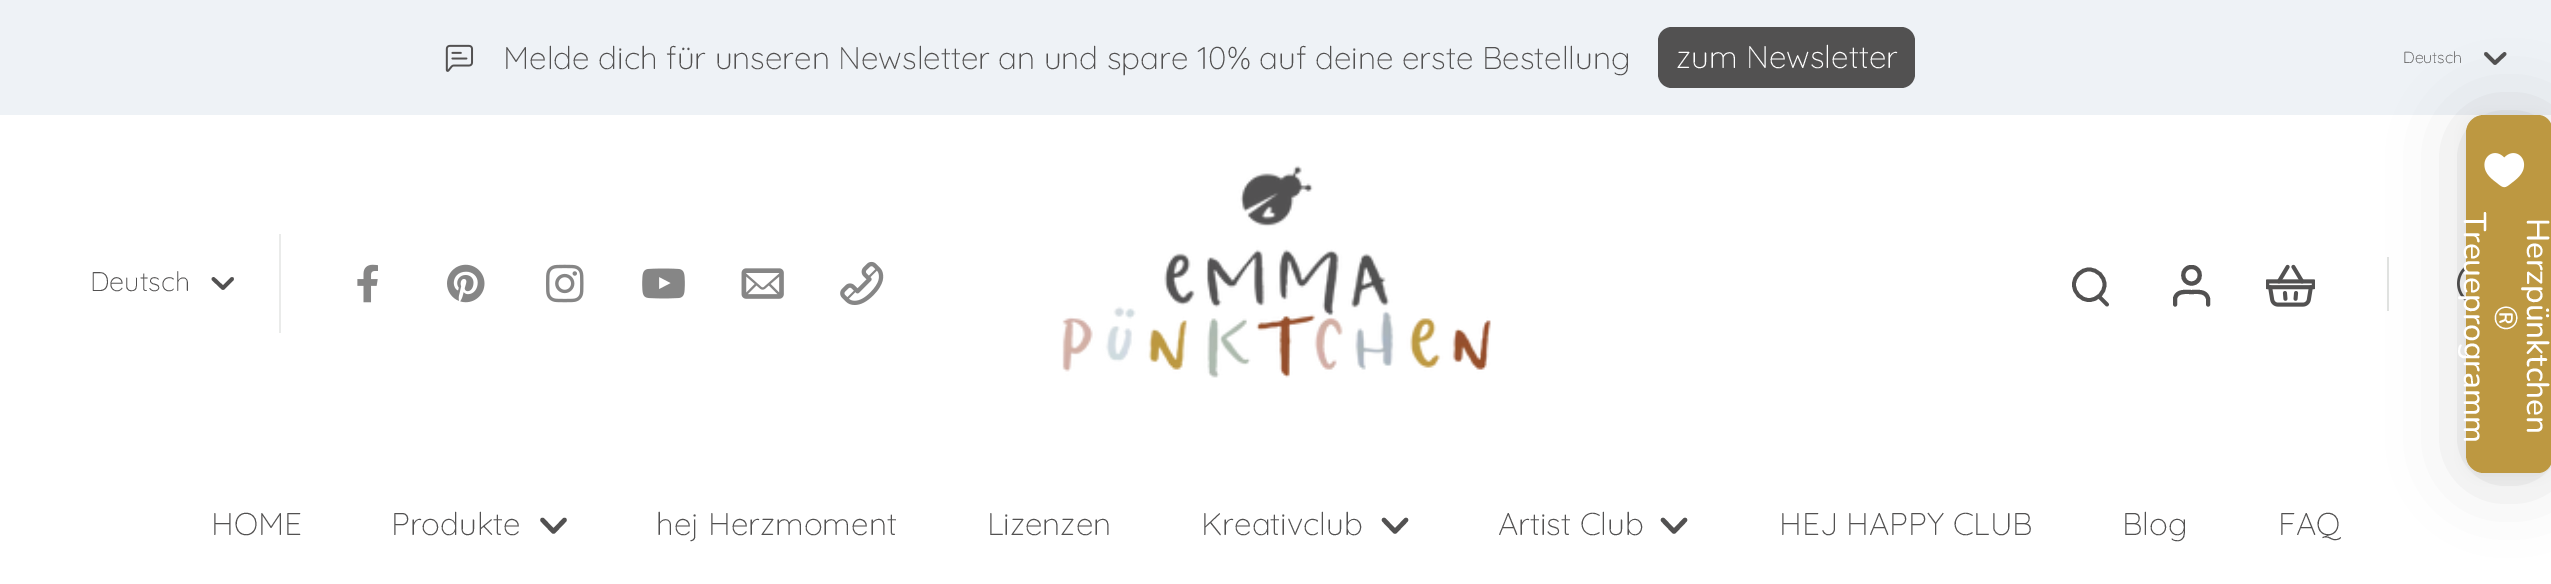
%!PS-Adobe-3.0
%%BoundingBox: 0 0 2551 584
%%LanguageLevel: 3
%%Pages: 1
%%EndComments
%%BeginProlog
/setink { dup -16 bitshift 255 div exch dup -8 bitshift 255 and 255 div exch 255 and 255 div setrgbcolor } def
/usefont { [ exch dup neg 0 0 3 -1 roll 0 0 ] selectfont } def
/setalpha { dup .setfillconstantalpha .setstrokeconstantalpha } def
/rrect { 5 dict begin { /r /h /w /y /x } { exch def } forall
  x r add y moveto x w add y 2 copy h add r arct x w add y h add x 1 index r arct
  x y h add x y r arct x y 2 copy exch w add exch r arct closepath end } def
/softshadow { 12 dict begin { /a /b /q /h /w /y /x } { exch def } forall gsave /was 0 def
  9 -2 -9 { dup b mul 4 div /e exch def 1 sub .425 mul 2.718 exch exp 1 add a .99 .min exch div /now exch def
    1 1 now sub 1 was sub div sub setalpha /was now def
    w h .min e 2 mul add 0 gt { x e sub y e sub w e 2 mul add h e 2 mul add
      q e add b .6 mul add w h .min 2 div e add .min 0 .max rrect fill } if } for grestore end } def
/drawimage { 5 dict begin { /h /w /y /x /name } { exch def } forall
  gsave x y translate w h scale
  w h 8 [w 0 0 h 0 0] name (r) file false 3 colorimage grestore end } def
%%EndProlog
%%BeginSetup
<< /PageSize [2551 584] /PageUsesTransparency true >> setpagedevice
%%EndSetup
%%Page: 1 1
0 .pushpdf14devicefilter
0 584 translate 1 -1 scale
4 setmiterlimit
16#FFFFFF setink
0 0 2551 584 rectfill
16#EEF2F6 setink
0 0 2551 115 rectfill
(img1.raw) 445 44 29 28 drawimage
/Quicksand-Light 31.5 usefont
16#525151 setink
503 69 moveto (Melde dich für unseren Newsletter an und spare 10% auf deine erste Bestellung) show
1658 27 257 61 14 rrect fill
16#FFFFFF setink
1676 68 moveto (zum Newsletter) show
/Quicksand-Light 16 usefont
16#525151 setink
2403 63 moveto (Deutsch) show
3.8 setlinewidth
1 setlinecap
1 setlinejoin
2486 54 moveto 2495 63 lineto 2504.5 54 lineto stroke
/Quicksand-Light 27 usefont
90 291 moveto (Deutsch) show
213.5 279 moveto 223 288 lineto 232 279 lineto stroke
16#EAEBEA setink
279 234 2 99 rectfill
(img2.raw) 357 264 21 39 drawimage
(img3.raw) 447 264 38 39 drawimage
(img4.raw) 546 264 38 39 drawimage
(img5.raw) 642 268 43 31 drawimage
(img6.raw) 741 268 43 31 drawimage
(img7.raw) 840 261 44 44 drawimage
(img8.raw) 1062 165 429 213 drawimage
16#525151 setink
0 setlinecap
0 setlinejoin
2089 300 moveto 2097.5 300 2104.5 293 2104.5 284.5 curveto 2104.5 276.5 2097.5 269.5 2089 269.5 curveto 2081 269.5 2074 276.5 2074 284.5 curveto 2074 293 2081 300 2089 300 curveto closepath stroke
1 setlinecap
2099.5 297 moveto 2107 304.5 lineto stroke
4.1 setlinewidth
1 setlinejoin
2208 304.5 moveto 2208 298.5 lineto 2206 290.5 2197.5 292 2191.5 292 curveto 2185.5 292 2177 290.5 2175 298.5 curveto 2175 304.5 lineto 2191.5 283.5 moveto 2202.5 283.5 2202.5 267 2191.5 267 curveto 2180.5 267 2180.5 283.5 2191.5 283.5 curveto closepath stroke
(img9.raw) 2266 264 49 43 drawimage
16#E1E3E1 setink
2387 257 2 54 rectfill
(img10.raw) 2457 265 9 37 drawimage
/Quicksand-Light 31.5 usefont
16#525151 setink
211 535 moveto (HOME) show
391 535 moveto (Produkte) show
4.5 setlinewidth
542.5 520 moveto 553.5 531.5 lineto 564.5 520 lineto stroke
[
    [(hej Herzmoment) 656 535]
    [(Lizenzen) 987 535]
    [(Kreativclub) 1201 535]
] { aload pop moveto show } forall
1384 520 moveto 1395 531.5 lineto 1406 520 lineto stroke
1498 535 moveto (Artist Club) show
1663 520 moveto 1674 531.5 lineto 1685 520 lineto stroke
[
    [(HEJ HAPPY CLUB) 1779 535]
    [(Blog) 2122 535]
    [(FAQ) 2278 535]
] { aload pop moveto show } forall
16#000000 setink
2466 119 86 358 18 36 0.16 softshadow
2466 117 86 358 18 7 0.06 softshadow
16#BD9841 setink
2484 115 moveto 2538 115 lineto 2545.5 115 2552 121.5 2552 129 curveto 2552 459 lineto 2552 466.5 2545.5 473 2538 473 curveto 2484 473 lineto 2474 473 2466 465 2466 455 curveto 2466 133 lineto 2466 123 2474 115 2484 115 curveto closepath fill
(img11.raw) 2484 153 41 35 drawimage
/Nunito-Medium 31.5 usefont
16#FFFFFF setink
gsave 2464 212 translate 90 rotate 0 0 moveto (Treueprogramm) show grestore
gsave 2495 305 translate 90 rotate 0 0 moveto (®) show grestore
gsave 2527 218 translate 90 rotate 0 0 moveto (Herzpünktchen) show grestore
.poppdf14devicefilter showpage
%%EOF
